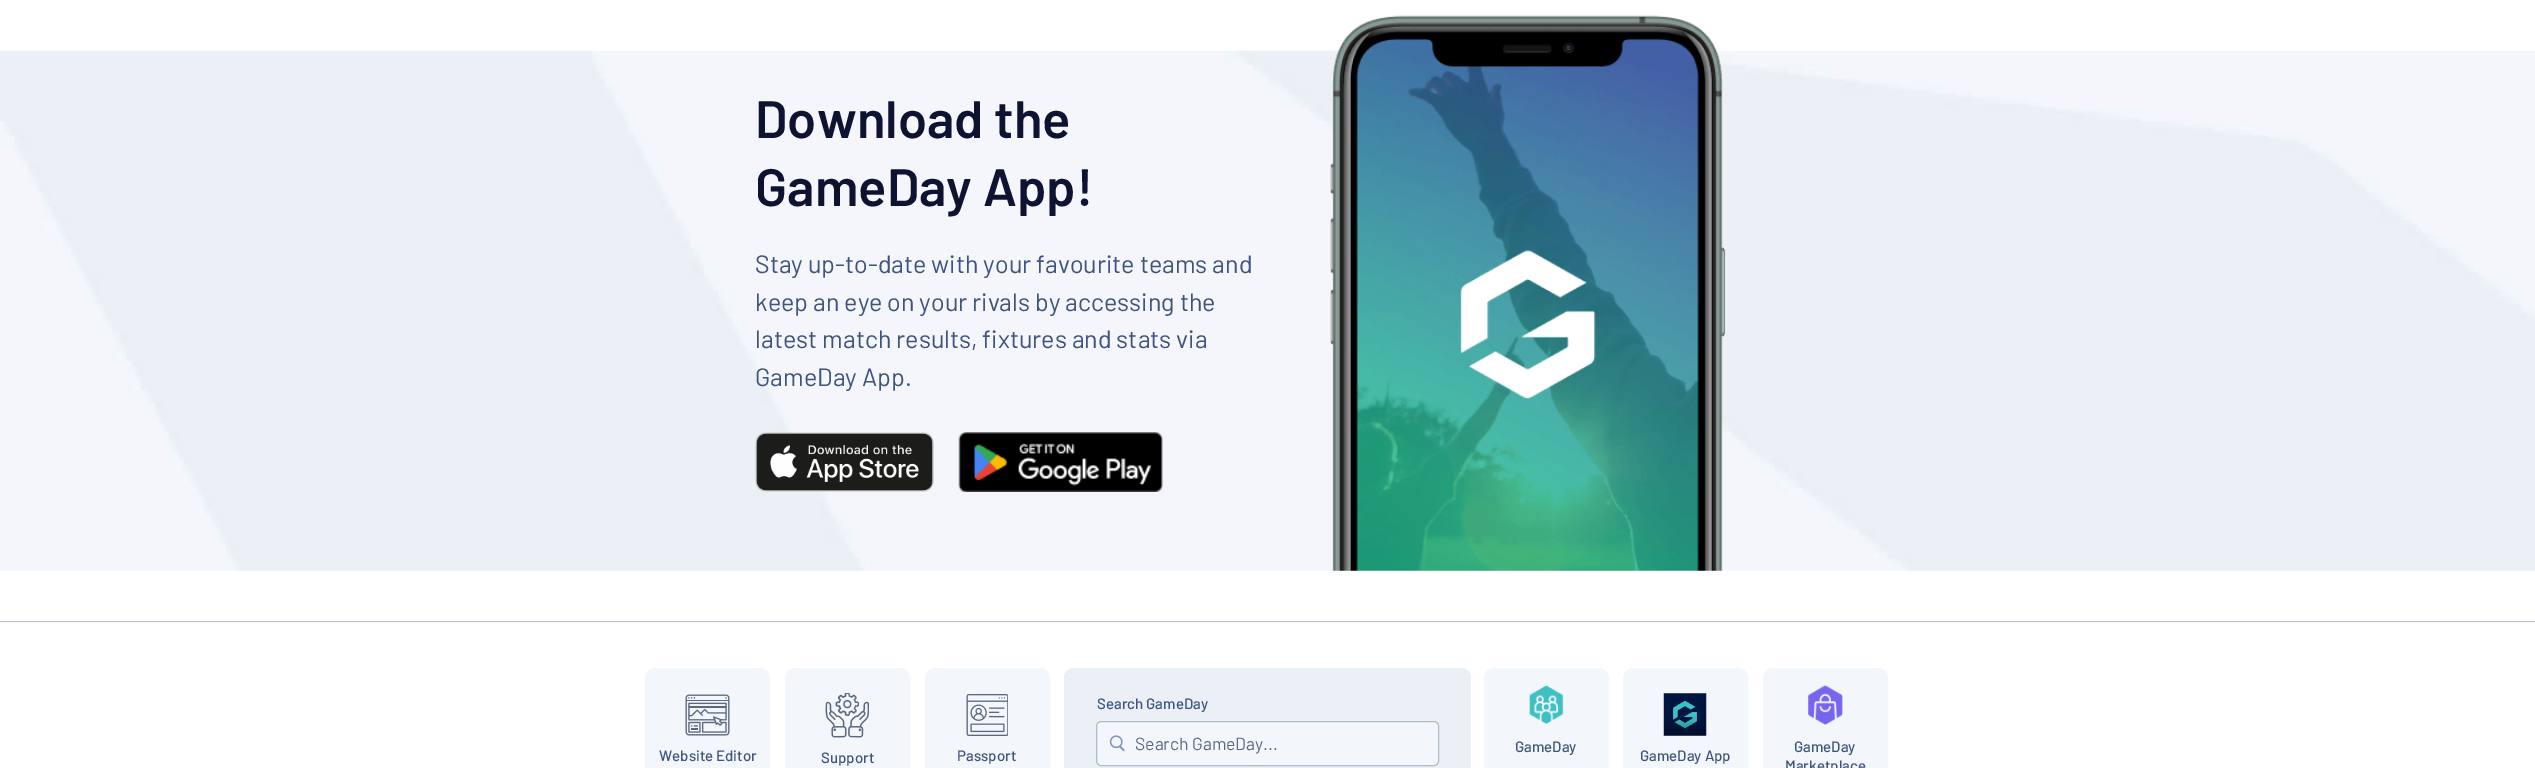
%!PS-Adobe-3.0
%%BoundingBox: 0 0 2535 768
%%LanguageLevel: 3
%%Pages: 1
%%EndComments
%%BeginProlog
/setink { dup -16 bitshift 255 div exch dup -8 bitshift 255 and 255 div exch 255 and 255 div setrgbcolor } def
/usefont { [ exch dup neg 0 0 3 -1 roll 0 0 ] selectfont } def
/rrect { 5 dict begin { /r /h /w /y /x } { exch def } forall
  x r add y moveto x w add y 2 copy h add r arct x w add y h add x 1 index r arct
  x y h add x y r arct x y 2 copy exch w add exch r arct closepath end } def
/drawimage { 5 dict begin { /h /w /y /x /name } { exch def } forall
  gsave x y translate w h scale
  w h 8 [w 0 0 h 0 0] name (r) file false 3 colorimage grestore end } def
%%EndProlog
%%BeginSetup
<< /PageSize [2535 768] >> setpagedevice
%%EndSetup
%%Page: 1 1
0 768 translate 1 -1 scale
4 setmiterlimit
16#FFFFFF setink
0 0 2535 768 rectfill
(img1.raw) 0 50 2535 521 drawimage
/Barlow-SemiBold 52.5 usefont
16#0D1330 setink
755 138 moveto (Download the) show
755 206 moveto (GameDay App!) show
/Barlow-Regular 25 usefont
16#3E547D setink
[
    [(Stay up-to-date with your favourite teams and) 755 273]
    [(keep an eye on your rivals by accessing the) 755 311]
    [(latest match results, fixtures and stats via) 755 348]
    [(GameDay App.) 755 386]
] { aload pop moveto show } forall
(img2.raw) 1330 15 396 556 drawimage
(img3.raw) 755 432 179 60 drawimage
(img4.raw) 958 432 205 60 drawimage
16#AFBDCA setink
0 621 2535 1 rectfill
16#F3F7FB setink
646.5 669.5 122 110 8.5 rrect gsave fill grestore
3 setlinewidth
stroke
(img5.raw) 685 694 45 42 drawimage
/Barlow-Medium 15 usefont
16#3E547D setink
659 761 moveto (Website Editor) show
16#F3F7FB setink
786.5 669.5 122 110 8.5 rrect gsave fill grestore
stroke
(img6.raw) 825 693 44 45 drawimage
16#3E547D setink
821 763 moveto (Support) show
16#F3F7FB setink
926.5 669.5 122 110 8.5 rrect gsave fill grestore
stroke
(img7.raw) 966 694 42 42 drawimage
16#3E547D setink
957 761 moveto (Passport) show
16#EAF0F5 setink
1064 668 407 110 10 rrect fill
16#3E547D setink
1097 709 moveto (Search GameDay) show
16#F3F7FB setink
1096 721 343 45 5 rrect fill
(img8.raw) 1109 735 16 17 drawimage
16#AFBDCA setink
1 setlinewidth
1096.5 721.5 342 44 4.5 rrect stroke
/Barlow-Regular 17.5 usefont
16#5A697F setink
1135 750 moveto (Search GameDay...) show
16#F3F7FB setink
1485.5 669.5 122 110 8.5 rrect gsave fill grestore
3 setlinewidth
stroke
(img9.raw) 1529 685 35 39 drawimage
/Barlow-Medium 15 usefont
16#3E547D setink
1515 752 moveto (GameDay) show
16#F3F7FB setink
1624.5 669.5 122 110 8.5 rrect gsave fill grestore
stroke
(img10.raw) 1663 693 44 43 drawimage
16#3E547D setink
1640 761 moveto (GameDay App) show
16#F3F7FB setink
1764.5 669.5 122 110 8.5 rrect gsave fill grestore
stroke
(img11.raw) 1808 685 35 40 drawimage
16#3E547D setink
1794 752 moveto (GameDay) show
1785 771 moveto (Marketplace) show
showpage
%%EOF
